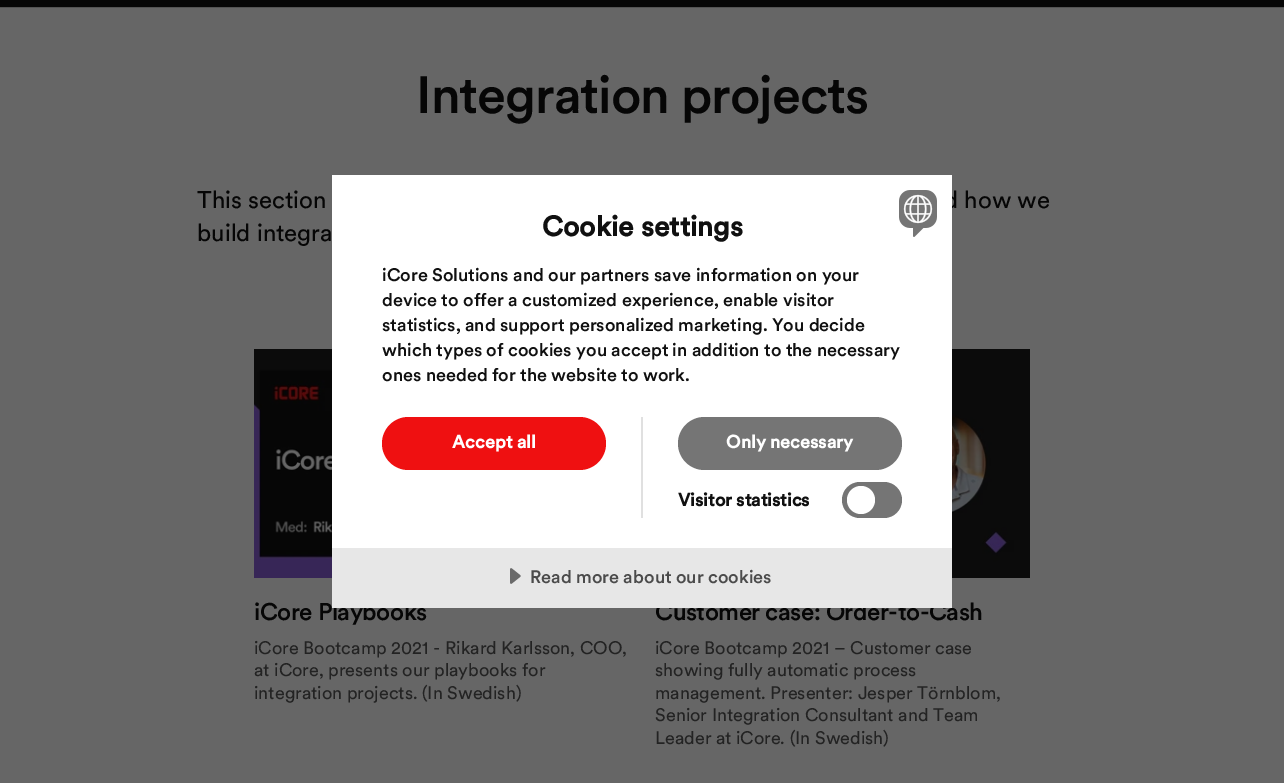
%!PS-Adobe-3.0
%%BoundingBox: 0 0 1284 783
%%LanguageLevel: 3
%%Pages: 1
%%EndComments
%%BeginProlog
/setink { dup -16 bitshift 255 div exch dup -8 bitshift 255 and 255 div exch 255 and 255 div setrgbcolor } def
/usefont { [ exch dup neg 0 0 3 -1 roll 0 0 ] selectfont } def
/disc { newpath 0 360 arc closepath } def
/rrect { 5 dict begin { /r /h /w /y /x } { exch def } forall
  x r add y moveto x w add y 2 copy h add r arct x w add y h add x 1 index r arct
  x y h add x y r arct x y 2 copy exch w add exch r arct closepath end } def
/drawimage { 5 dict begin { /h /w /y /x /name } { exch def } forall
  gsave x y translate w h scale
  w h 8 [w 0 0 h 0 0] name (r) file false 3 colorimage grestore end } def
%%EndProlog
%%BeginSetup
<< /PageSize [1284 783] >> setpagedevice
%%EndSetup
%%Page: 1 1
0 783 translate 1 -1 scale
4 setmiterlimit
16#060606 setink
0 0 1284 783 rectfill
16#535353 setink
0 7 1284 1 rectfill
16#666666 setink
0 8 1284 775 rectfill
/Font-Medium 52 usefont
16#060606 setink
416 113 moveto -1 0 (Integration projects) ashow
/Font-Regular 24 usefont
[
    [(This section) 197 208]
    [(d how we) 944 208]
    [(build integra) 197 241]
] { aload pop moveto show } forall
(img1.raw) 254 349 78 229 drawimage
/Font-Medium 24 usefont
254 620 moveto -0.5 0 (iCore Playbooks) ashow
/Font-Regular 18 usefont
16#232323 setink
[
    [(iCore Bootcamp 2021 - Rikard Karlsson, COO,) 254 654]
    [(at iCore, presents our playbooks for) 254 676]
    [(integration projects. \(In Swedish\)) 254 699]
] { aload pop moveto show } forall
(img2.raw) 952 349 78 229 drawimage
/Font-Medium 24 usefont
16#060606 setink
655 620 moveto -0.5 0 (Customer case: Order-to-Cash) ashow
/Font-Regular 18 usefont
16#232323 setink
[
    [(iCore Bootcamp 2021 – Customer case) 655 654]
    [(showing fully automatic process) 655 676]
    [(management. Presenter: Jesper Törnblom,) 655 699]
    [(Senior Integration Consultant and Team) 655 721]
    [(Leader at iCore. \(In Swedish\)) 655 744]
] { aload pop moveto show } forall
16#FFFFFF setink
332 175 620 373 rectfill
/Font-Bold 28 usefont
16#101010 setink
542 236 moveto (Cookie settings) show
/Font-Medium 18 usefont
[
    [(iCore Solutions and our partners save information on your) 382 281]
    [(device to offer a customized experience, enable visitor) 382 306]
    [(statistics, and support personalized marketing. You decide) 382 331]
    [(which types of cookies you accept in addition to the necessary) 382 356]
    [(ones needed for the website to work.) 382 381]
] { aload pop moveto show } forall
16#E0E0E0 setink
641 417 2 101 rectfill
16#EF1011 setink
382 417 224 53 26.5 rrect fill
/Font-Bold 18 usefont
16#FFFFFF setink
452 448 moveto (Accept all) show
16#757575 setink
678 417 224 53 26.5 rrect fill
16#FFFFFF setink
726 448 moveto (Only necessary) show
16#101010 setink
678 506 moveto (Visitor statistics) show
16#757575 setink
842 482 60 36 18 rrect fill
16#FFFFFF setink
861 500 14 disc fill
(img3.raw) 899 190 38 47 drawimage
16#E7E7E7 setink
332 548 620 60 rectfill
(img4.raw) 510 568 11 16 drawimage
/Font-Medium 18 usefont
16#4B4B4B setink
530 583 moveto (Read more about our cookies) show
showpage
%%EOF
